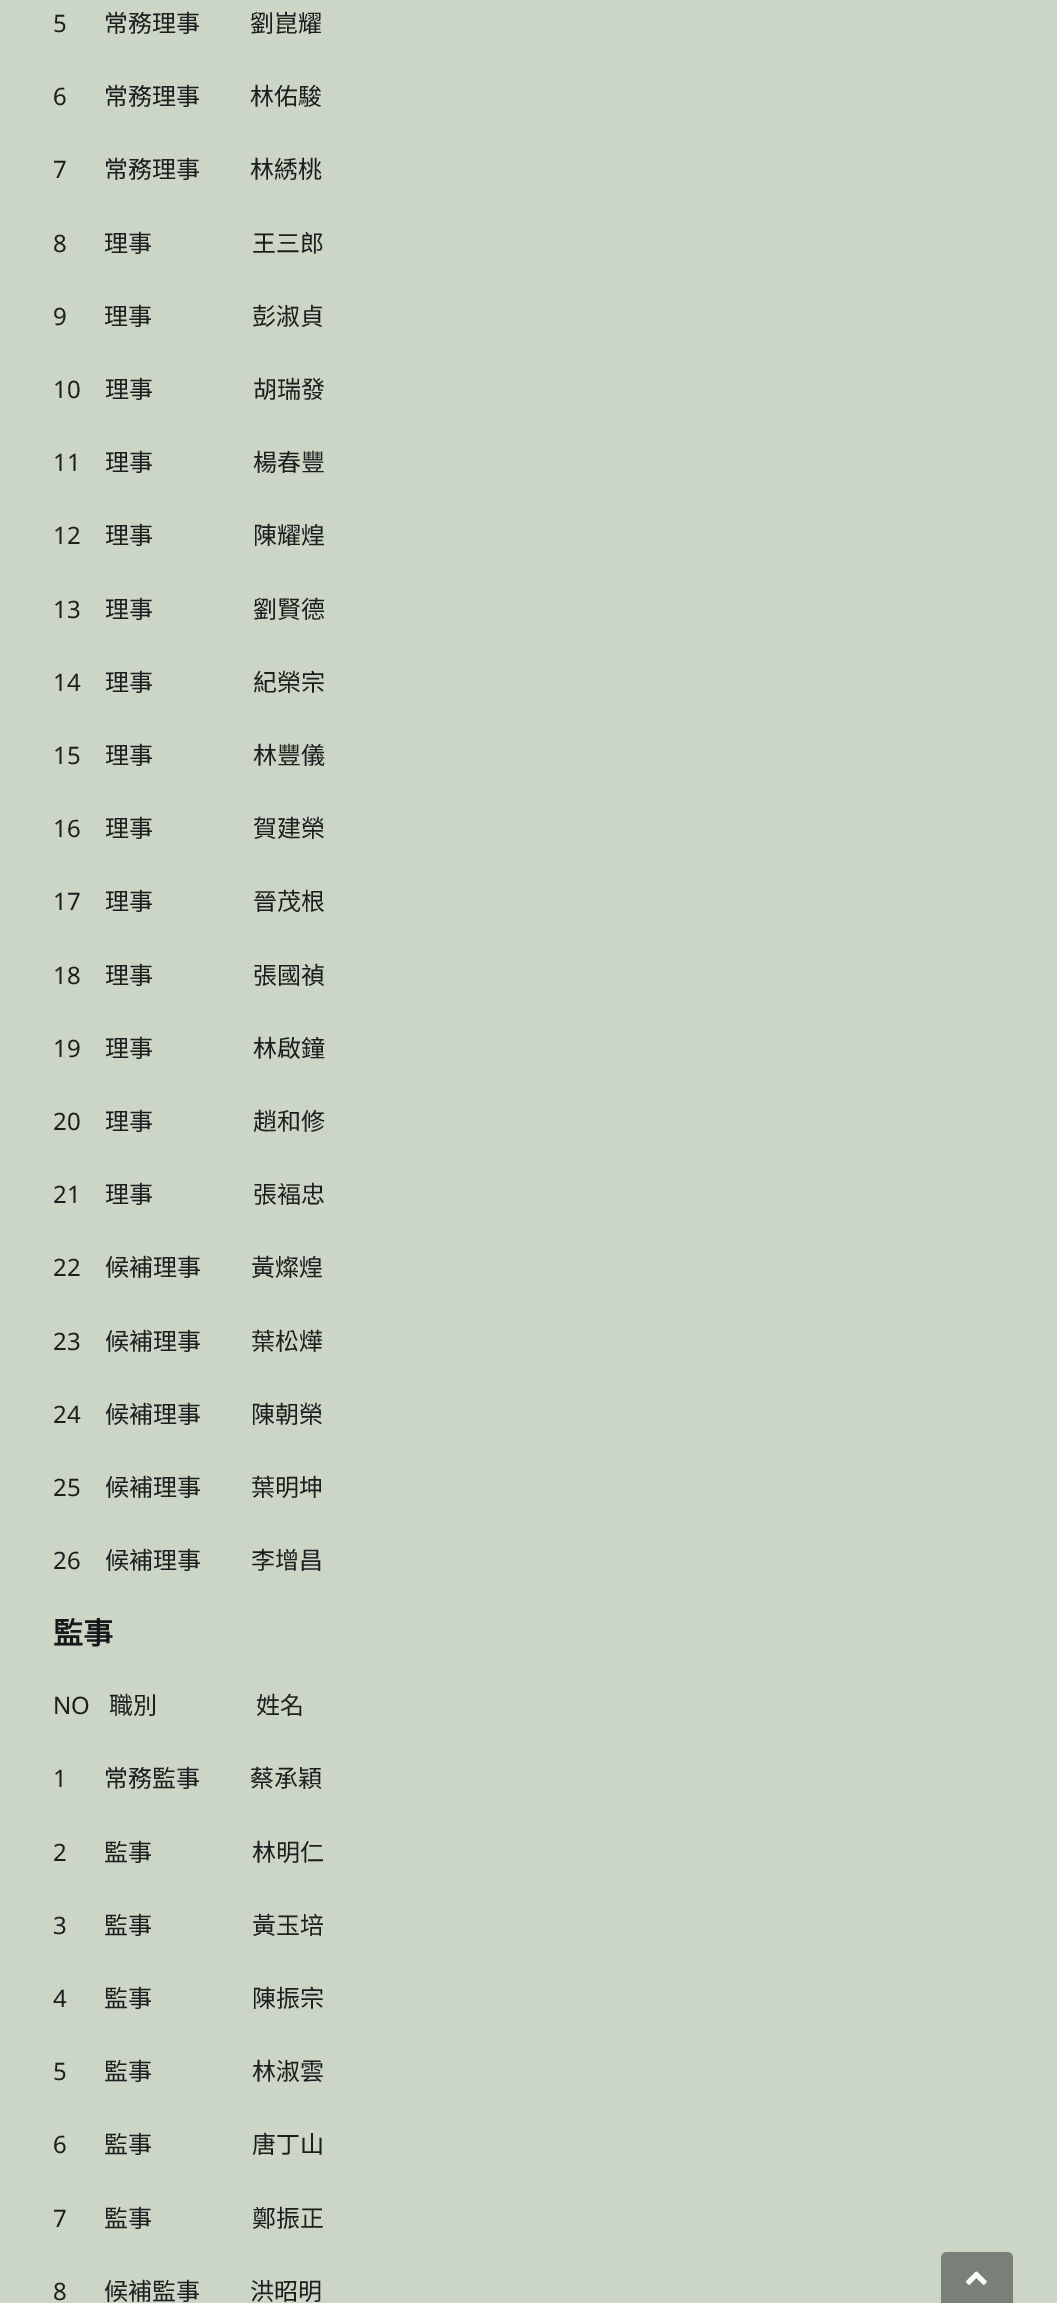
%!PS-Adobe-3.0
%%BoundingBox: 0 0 1057 2303
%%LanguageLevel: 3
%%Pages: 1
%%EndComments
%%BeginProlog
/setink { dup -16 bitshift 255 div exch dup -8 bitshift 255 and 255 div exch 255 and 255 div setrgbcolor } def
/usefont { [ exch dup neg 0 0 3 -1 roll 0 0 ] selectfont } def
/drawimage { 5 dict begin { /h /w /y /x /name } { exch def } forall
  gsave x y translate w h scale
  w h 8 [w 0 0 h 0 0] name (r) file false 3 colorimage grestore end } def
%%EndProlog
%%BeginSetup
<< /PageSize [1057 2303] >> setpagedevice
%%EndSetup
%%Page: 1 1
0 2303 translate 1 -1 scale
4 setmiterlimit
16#CCD6C7 setink
0 0 1057 2303 rectfill
/NotoSans-Regular 24 usefont
16#1E1E1E setink
53 32 moveto (5) show
/NotoSansCJKTC-Regular 24 usefont
104 32 moveto (常務理事) show
250 32 moveto (劉崑耀) show
/NotoSans-Regular 24 usefont
53 105 moveto (6) show
/NotoSansCJKTC-Regular 24 usefont
104 105 moveto (常務理事) show
250 105 moveto (林佑駿) show
/NotoSans-Regular 24 usefont
53 178 moveto (7) show
/NotoSansCJKTC-Regular 24 usefont
104 178 moveto (常務理事) show
250 178 moveto (林綉桃) show
/NotoSans-Regular 24 usefont
53 252 moveto (8) show
/NotoSansCJKTC-Regular 24 usefont
104 252 moveto (理事) show
252 252 moveto (王三郎) show
/NotoSans-Regular 24 usefont
53 325 moveto (9) show
/NotoSansCJKTC-Regular 24 usefont
104 325 moveto (理事) show
252 325 moveto (彭淑貞) show
/NotoSans-Regular 24 usefont
53 398 moveto (10) show
/NotoSansCJKTC-Regular 24 usefont
105 398 moveto (理事) show
253 398 moveto (胡瑞發) show
/NotoSans-Regular 24 usefont
53 471 moveto (11) show
/NotoSansCJKTC-Regular 24 usefont
105 471 moveto (理事) show
253 471 moveto (楊春豐) show
/NotoSans-Regular 24 usefont
53 544 moveto (12) show
/NotoSansCJKTC-Regular 24 usefont
105 544 moveto (理事) show
253 544 moveto (陳耀煌) show
/NotoSans-Regular 24 usefont
53 618 moveto (13) show
/NotoSansCJKTC-Regular 24 usefont
105 618 moveto (理事) show
253 618 moveto (劉賢德) show
/NotoSans-Regular 24 usefont
53 691 moveto (14) show
/NotoSansCJKTC-Regular 24 usefont
105 691 moveto (理事) show
253 691 moveto (紀榮宗) show
/NotoSans-Regular 24 usefont
53 764 moveto (15) show
/NotoSansCJKTC-Regular 24 usefont
105 764 moveto (理事) show
253 764 moveto (林豐儀) show
/NotoSans-Regular 24 usefont
53 837 moveto (16) show
/NotoSansCJKTC-Regular 24 usefont
105 837 moveto (理事) show
253 837 moveto (賀建榮) show
/NotoSans-Regular 24 usefont
53 910 moveto (17) show
/NotoSansCJKTC-Regular 24 usefont
105 910 moveto (理事) show
253 910 moveto (晉茂根) show
/NotoSans-Regular 24 usefont
53 984 moveto (18) show
/NotoSansCJKTC-Regular 24 usefont
105 984 moveto (理事) show
253 984 moveto (張國禎) show
/NotoSans-Regular 24 usefont
53 1057 moveto (19) show
/NotoSansCJKTC-Regular 24 usefont
105 1057 moveto (理事) show
253 1057 moveto (林啟鐘) show
/NotoSans-Regular 24 usefont
53 1130 moveto (20) show
/NotoSansCJKTC-Regular 24 usefont
105 1130 moveto (理事) show
253 1130 moveto (趙和修) show
/NotoSans-Regular 24 usefont
53 1203 moveto (21) show
/NotoSansCJKTC-Regular 24 usefont
105 1203 moveto (理事) show
253 1203 moveto (張褔忠) show
/NotoSans-Regular 24 usefont
53 1276 moveto (22) show
/NotoSansCJKTC-Regular 24 usefont
105 1276 moveto (候補理事) show
251 1276 moveto (黃燦煌) show
/NotoSans-Regular 24 usefont
53 1350 moveto (23) show
/NotoSansCJKTC-Regular 24 usefont
105 1350 moveto (候補理事) show
251 1350 moveto (葉松燁) show
/NotoSans-Regular 24 usefont
53 1423 moveto (24) show
/NotoSansCJKTC-Regular 24 usefont
105 1423 moveto (候補理事) show
251 1423 moveto (陳朝榮) show
/NotoSans-Regular 24 usefont
53 1496 moveto (25) show
/NotoSansCJKTC-Regular 24 usefont
105 1496 moveto (候補理事) show
251 1496 moveto (葉明坤) show
/NotoSans-Regular 24 usefont
53 1569 moveto (26) show
/NotoSansCJKTC-Regular 24 usefont
105 1569 moveto (候補理事) show
251 1569 moveto (李增昌) show
/NotoSansCJKTC-Bold 30 usefont
16#161819 setink
53 1644 moveto (監事) show
/NotoSans-Regular 24 usefont
16#1E1E1E setink
53 1714 moveto (NO) show
/NotoSansCJKTC-Regular 24 usefont
109 1714 moveto (職別) show
256 1714 moveto (姓名) show
/NotoSans-Regular 24 usefont
53 1787 moveto (1) show
/NotoSansCJKTC-Regular 24 usefont
104 1787 moveto (常務監事) show
250 1787 moveto (蔡承穎) show
/NotoSans-Regular 24 usefont
53 1861 moveto (2) show
/NotoSansCJKTC-Regular 24 usefont
104 1861 moveto (監事) show
252 1861 moveto (林明仁) show
/NotoSans-Regular 24 usefont
53 1934 moveto (3) show
/NotoSansCJKTC-Regular 24 usefont
104 1934 moveto (監事) show
252 1934 moveto (黃玉培) show
/NotoSans-Regular 24 usefont
53 2007 moveto (4) show
/NotoSansCJKTC-Regular 24 usefont
104 2007 moveto (監事) show
252 2007 moveto (陳振宗) show
/NotoSans-Regular 24 usefont
53 2080 moveto (5) show
/NotoSansCJKTC-Regular 24 usefont
104 2080 moveto (監事) show
252 2080 moveto (林淑雲) show
/NotoSans-Regular 24 usefont
53 2153 moveto (6) show
/NotoSansCJKTC-Regular 24 usefont
104 2153 moveto (監事) show
252 2153 moveto (唐丁山) show
/NotoSans-Regular 24 usefont
53 2227 moveto (7) show
/NotoSansCJKTC-Regular 24 usefont
104 2227 moveto (監事) show
252 2227 moveto (鄭振正) show
/NotoSans-Regular 24 usefont
53 2300 moveto (8) show
/NotoSansCJKTC-Regular 24 usefont
104 2300 moveto (候補監事) show
250 2300 moveto (洪昭明) show
16#7A8077 setink
947 2252 moveto 1007 2252 lineto 1010.5 2252 1013 2254.5 1013 2258 curveto 1013 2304 lineto 941 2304 lineto 941 2258 lineto 941 2254.5 943.5 2252 947 2252 curveto closepath fill
(img1.raw) 966 2271 21 14 drawimage
showpage
%%EOF
